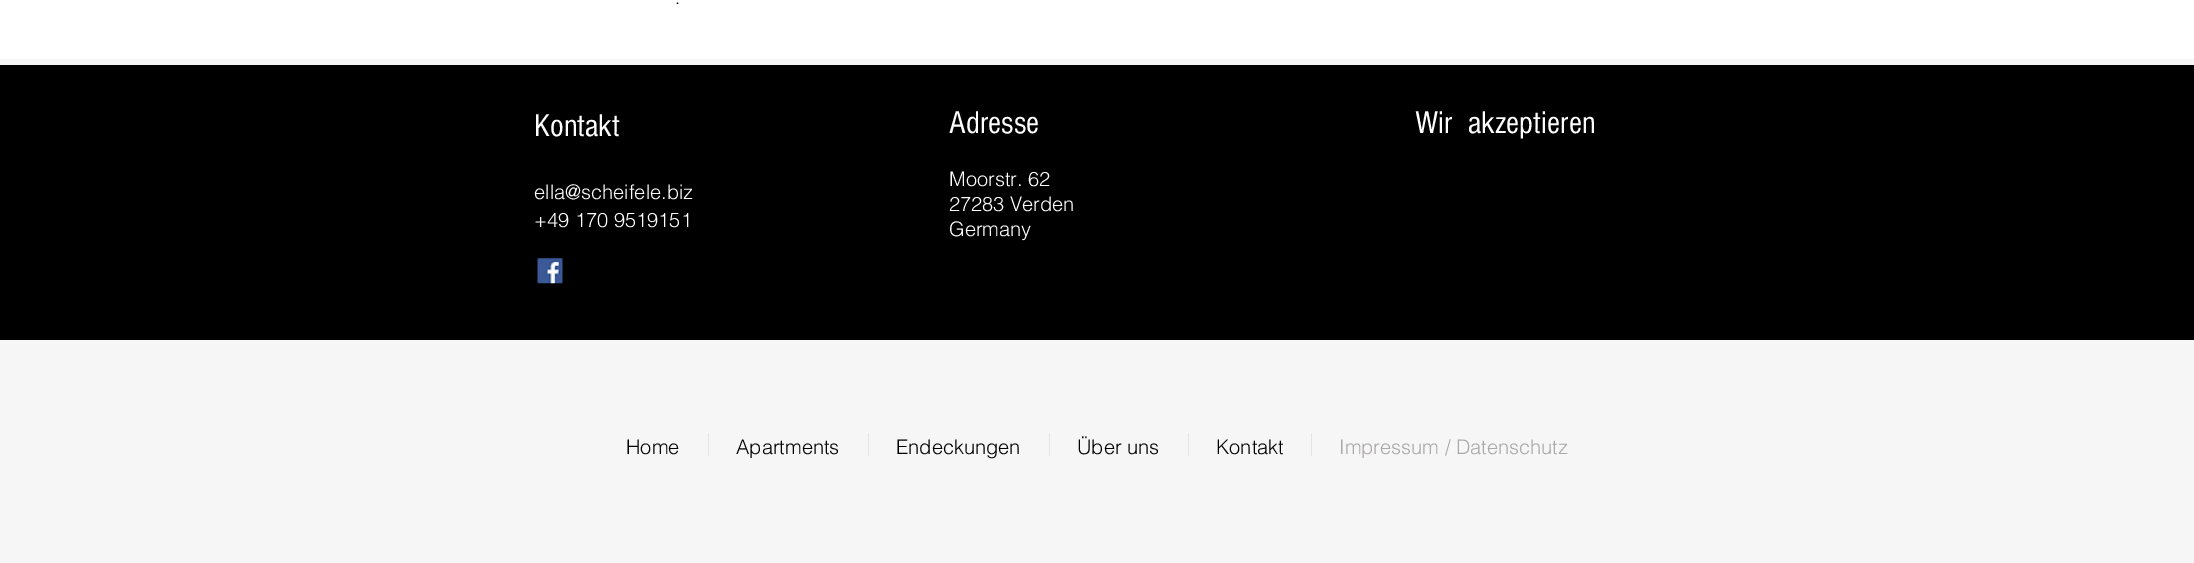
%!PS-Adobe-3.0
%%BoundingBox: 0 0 2194 563
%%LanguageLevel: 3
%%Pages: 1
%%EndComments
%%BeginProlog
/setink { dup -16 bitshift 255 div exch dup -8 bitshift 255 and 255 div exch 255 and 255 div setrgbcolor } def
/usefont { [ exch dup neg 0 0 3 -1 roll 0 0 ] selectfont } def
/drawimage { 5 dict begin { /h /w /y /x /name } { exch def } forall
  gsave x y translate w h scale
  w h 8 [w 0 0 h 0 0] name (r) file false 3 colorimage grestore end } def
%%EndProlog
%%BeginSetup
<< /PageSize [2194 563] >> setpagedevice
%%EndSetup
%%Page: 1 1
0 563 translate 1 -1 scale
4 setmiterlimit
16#FFFFFF setink
0 0 2194 563 rectfill
/helvetica-Light 18 usefont
16#000000 setink
675 4 moveto (.) show
16#F6F6F6 setink
0 59 2194 504 rectfill
16#000000 setink
0 65 2194 275 rectfill
/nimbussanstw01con-Regular 32.5 usefont
16#FFFFFF setink
534 136 moveto (Kontakt) show
/helvetica-Light 20 usefont
534 199 moveto (ella@scheifele.biz) show
534 227 moveto (+49 170 9519151) show
/nimbussanstw01con-Regular 32.5 usefont
949 133 moveto (Adresse) show
/helvetica-Light 20 usefont
[
    [(Moorstr. 62) 949 186]
    [(27283 Verden) 949 211]
    [(Germany) 949 236]
] { aload pop moveto show } forall
/nimbussanstw01con-Regular 32.5 usefont
1415 133 moveto (Wir  akzeptieren) show
(img1.raw) 537 258 26 26 drawimage
/helvetica-Light 20 usefont
16#000000 setink
626 454 moveto (Home) show
16#E4E4E4 setink
708 433 1 23 rectfill
16#000000 setink
736 454 moveto (Apartments) show
16#E4E4E4 setink
868 433 1 23 rectfill
16#000000 setink
896 454 moveto (Endeckungen) show
16#E4E4E4 setink
1049 433 1 23 rectfill
16#000000 setink
1077 454 moveto (Über uns) show
16#E4E4E4 setink
1188 433 1 23 rectfill
16#000000 setink
1216 454 moveto (Kontakt) show
16#E4E4E4 setink
1311 433 1 23 rectfill
16#AAA8A8 setink
1339 454 moveto (Impressum / Datenschutz) show
showpage
%%EOF
